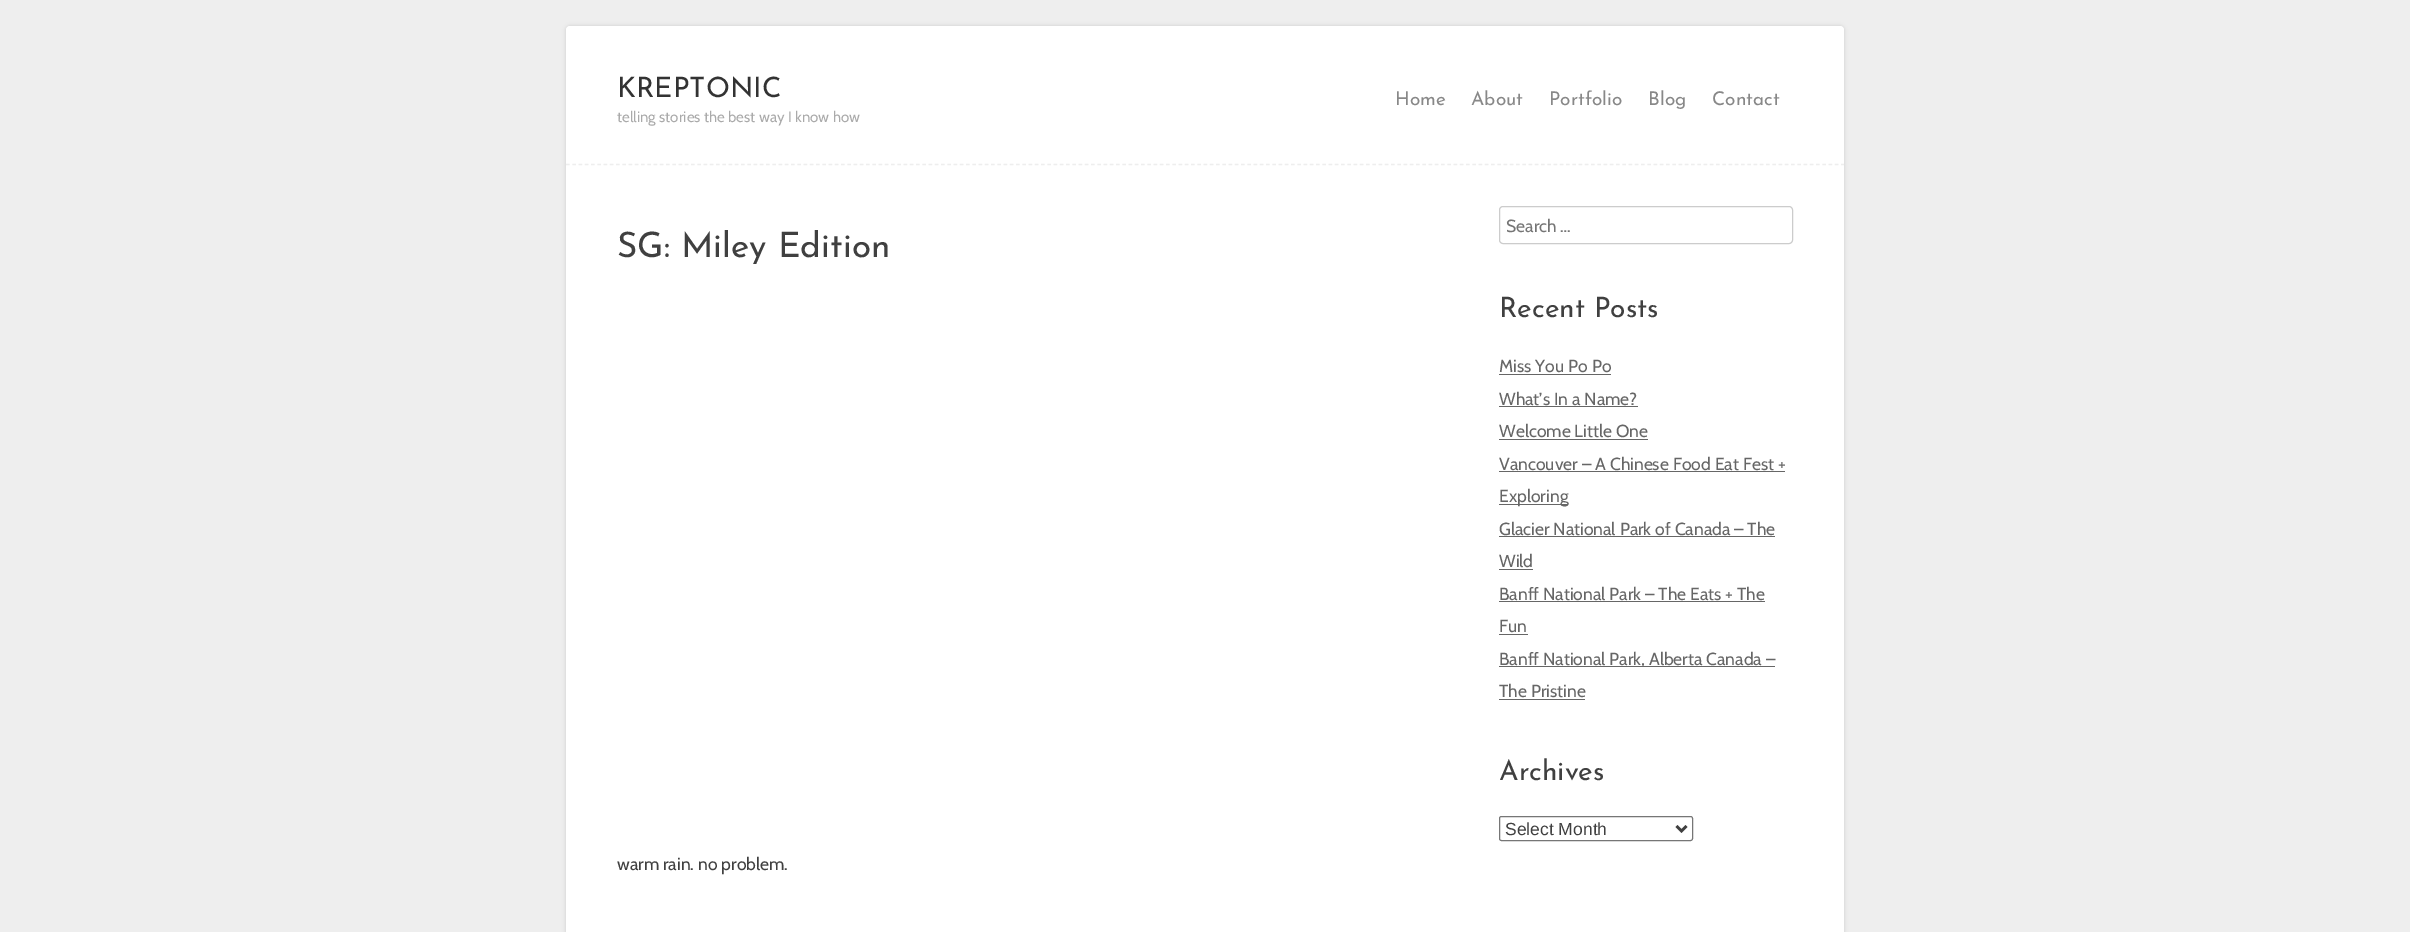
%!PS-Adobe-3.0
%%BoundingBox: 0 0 2410 932
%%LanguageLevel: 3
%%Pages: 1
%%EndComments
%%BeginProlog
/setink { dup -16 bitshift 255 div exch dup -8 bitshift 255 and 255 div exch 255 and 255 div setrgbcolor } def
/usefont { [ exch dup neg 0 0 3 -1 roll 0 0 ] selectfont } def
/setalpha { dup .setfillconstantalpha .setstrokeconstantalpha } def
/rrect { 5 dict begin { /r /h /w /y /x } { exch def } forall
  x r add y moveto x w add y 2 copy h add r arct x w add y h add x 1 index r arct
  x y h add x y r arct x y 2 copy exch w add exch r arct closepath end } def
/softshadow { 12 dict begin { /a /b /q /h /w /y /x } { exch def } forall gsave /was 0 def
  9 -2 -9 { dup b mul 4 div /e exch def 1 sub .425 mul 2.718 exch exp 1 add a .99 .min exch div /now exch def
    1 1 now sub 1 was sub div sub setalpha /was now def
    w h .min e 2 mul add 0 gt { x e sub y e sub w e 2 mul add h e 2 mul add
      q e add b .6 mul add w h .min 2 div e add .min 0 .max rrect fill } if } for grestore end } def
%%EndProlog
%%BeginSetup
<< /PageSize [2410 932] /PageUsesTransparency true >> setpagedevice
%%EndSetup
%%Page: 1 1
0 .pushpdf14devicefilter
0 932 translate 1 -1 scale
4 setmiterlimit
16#EEEEEE setink
0 0 2410 932 rectfill
16#CCCCCC setink
566 26 1278 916 4 2 1 softshadow
16#FFFFFF setink
566 26 1278 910 4 rrect fill
/JosefinSans-Regular 28 usefont
16#333333 setink
617 97 moveto (KREPTONIC) show
/Cabin-Regular 15 usefont
16#AAAAAA setink
617 122 moveto (telling stories the best way I know how) show
/JosefinSans-Regular 19 usefont
16#888888 setink
[
    [(Home) 1395 105]
    [(About) 1471 105]
    [(Portfolio) 1549 105]
    [(Blog) 1648 105]
    [(Contact) 1712 105]
] { aload pop moveto show } forall
16#EEEEEE setink
1.2 setlinewidth
[3.75 2.5] 0 setdash
566 164.5 moveto 1844 164.5 lineto stroke
/JosefinSans-Regular 35 usefont
16#404040 setink
617 257 moveto (SG: Miley Edition) show
/Cabin-Regular 17.5 usefont
617 870 moveto (warm rain. no problem.) show
16#CCCCCC setink
1 setlinewidth
[] 0 setdash
1499.5 206.5 293 37 3.5 rrect stroke
16#757575 setink
1506 232 moveto (Search …) show
/JosefinSans-Regular 28 usefont
16#404040 setink
1499 317 moveto (Recent Posts) show
/Cabin-Regular 17.5 usefont
16#666666 setink
1499 372 moveto (Miss You Po Po) show
1499 374 112 1 rectfill
1499 405 moveto (What’s In a Name?) show
1499 406 139 1 rectfill
1499 437 moveto (Welcome Little One) show
1499 439 149 1 rectfill
1499 470 moveto (Vancouver – A Chinese Food Eat Fest +) show
1499 471 286 1 rectfill
1499 504 69 1 rectfill
1499 502 moveto (Exploring) show
1499 535 moveto (Glacier National Park of Canada – The) show
1499 536 276 1 rectfill
1499 567 moveto (Wild) show
1499 569 34 1 rectfill
1499 600 moveto (Banff National Park – The Eats + The) show
1499 601 266 1 rectfill
1499 632 moveto (Fun) show
1499 634 29 1 rectfill
1499 666 276 1 rectfill
1499 665 moveto (Banff National Park, Alberta Canada –) show
1499 697 moveto (The Pristine) show
1499 699 86 1 rectfill
/JosefinSans-Regular 28 usefont
16#404040 setink
1499 780 moveto (Archives) show
16#767676 setink
1499.5 816.5 193 24 2 rrect stroke
16#404040 setink
2.5 setlinewidth
1676.5 826 moveto 1681.5 831 lineto 1686.5 826 lineto stroke
/LiberationSans-Regular 17.5 usefont
1505 835 moveto (Select Month) show
.poppdf14devicefilter showpage
%%EOF
